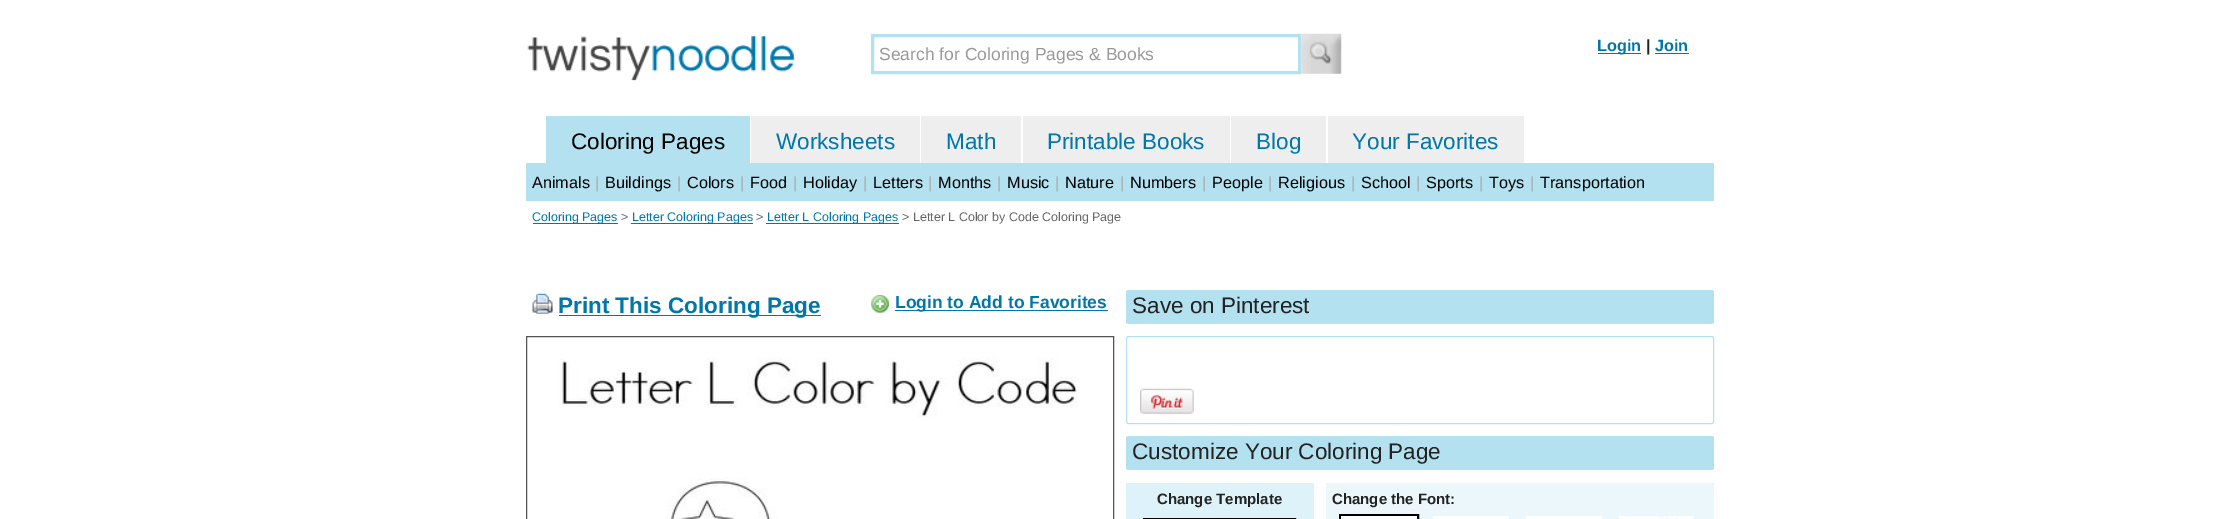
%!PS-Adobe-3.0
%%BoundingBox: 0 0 2238 519
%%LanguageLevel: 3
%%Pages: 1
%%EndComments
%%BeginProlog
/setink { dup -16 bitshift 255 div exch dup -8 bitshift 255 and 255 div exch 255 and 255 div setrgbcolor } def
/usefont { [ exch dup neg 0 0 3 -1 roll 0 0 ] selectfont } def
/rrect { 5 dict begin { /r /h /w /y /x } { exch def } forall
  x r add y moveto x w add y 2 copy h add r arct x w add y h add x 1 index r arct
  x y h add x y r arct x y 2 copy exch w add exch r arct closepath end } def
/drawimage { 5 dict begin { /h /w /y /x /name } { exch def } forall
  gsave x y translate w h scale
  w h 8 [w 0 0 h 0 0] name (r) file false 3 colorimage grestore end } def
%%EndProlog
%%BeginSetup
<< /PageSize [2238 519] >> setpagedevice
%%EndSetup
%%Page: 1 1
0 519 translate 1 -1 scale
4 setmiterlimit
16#FFFFFF setink
0 0 2238 519 rectfill
(img1.raw) 527 36 269 45 drawimage
16#B3E1F0 setink
3 setlinewidth
872.5 35.5 427 37 rectstroke
/LiberationSans-Regular 17.5 usefont
16#999999 setink
879 60 moveto (Search for Coloring Pages & Books) show
(img2.raw) 1301 33 41 41 drawimage
16#0077AA setink
1598 53 43 1 rectfill
/LiberationSans-Bold 16.25 usefont
1597 51 moveto (Login) show
16#222222 setink
1646 51 moveto (|) show
16#0077AA setink
1655 51 moveto (Join) show
1655 53 34 1 rectfill
16#B3E1F0 setink
546 116 204 47 rectfill
/LiberationSans-Regular 22.5 usefont
16#000000 setink
571 149 moveto (Coloring Pages) show
16#EEEEEE setink
751 116 169 47 rectfill
16#0077AA setink
776 149 moveto (Worksheets) show
16#EEEEEE setink
921 116 100 47 rectfill
16#0077AA setink
946 149 moveto (Math) show
16#EEEEEE setink
1023 116 207 47 rectfill
16#0077AA setink
1047 149 moveto (Printable Books) show
16#EEEEEE setink
1231 116 95 47 rectfill
16#0077AA setink
1256 149 moveto (Blog) show
16#EEEEEE setink
1328 116 196 47 rectfill
16#0077AA setink
1352 149 moveto (Your Favorites) show
16#B3E1F0 setink
526 163 1188 38 rectfill
/LiberationSans-Regular 16.25 usefont
16#000000 setink
532 188 moveto (Animals) show
16#AAAAAA setink
595 188 moveto (|) show
16#000000 setink
605 188 moveto (Buildings) show
16#AAAAAA setink
677 188 moveto (|) show
16#000000 setink
687 188 moveto (Colors) show
16#AAAAAA setink
740 188 moveto (|) show
16#000000 setink
750 188 moveto (Food) show
16#AAAAAA setink
793 188 moveto (|) show
16#000000 setink
803 188 moveto (Holiday) show
16#AAAAAA setink
863 188 moveto (|) show
16#000000 setink
873 188 moveto (Letters) show
16#AAAAAA setink
928 188 moveto (|) show
16#000000 setink
938 188 moveto (Months) show
16#AAAAAA setink
997 188 moveto (|) show
16#000000 setink
1007 188 moveto (Music) show
16#AAAAAA setink
1055 188 moveto (|) show
16#000000 setink
1065 188 moveto (Nature) show
16#AAAAAA setink
1120 188 moveto (|) show
16#000000 setink
1130 188 moveto (Numbers) show
16#AAAAAA setink
1202 188 moveto (|) show
16#000000 setink
1212 188 moveto (People) show
16#AAAAAA setink
1268 188 moveto (|) show
16#000000 setink
1278 188 moveto (Religious) show
16#AAAAAA setink
1351 188 moveto (|) show
16#000000 setink
1361 188 moveto (School) show
16#AAAAAA setink
1416 188 moveto (|) show
16#000000 setink
1426 188 moveto (Sports) show
16#AAAAAA setink
1479 188 moveto (|) show
16#000000 setink
1489 188 moveto (Toys) show
16#AAAAAA setink
1530 188 moveto (|) show
16#000000 setink
1540 188 moveto (Transportation) show
16#0077AA setink
533 223 85 1 rectfill
/LiberationSans-Regular 12.5 usefont
532 221 moveto (Coloring Pages) show
16#666666 setink
621 221 moveto (>) show
16#0077AA setink
631 223 122 1 rectfill
632 221 moveto (Letter Coloring Pages) show
16#666666 setink
756 221 moveto (>) show
16#0077AA setink
766 223 133 1 rectfill
767 221 moveto (Letter L Coloring Pages) show
16#666666 setink
902 221 moveto (> Letter L Color by Code Coloring Page) show
(img3.raw) 532 293 21 21 drawimage
16#0077AA setink
559 315 262 1 rectfill
/LiberationSans-Bold 22.5 usefont
558 313 moveto (Print This Coloring Page) show
(img4.raw) 871 294 18 19 drawimage
895 310 213 1 rectfill
/LiberationSans-Bold 17.5 usefont
895 308 moveto (Login to Add to Favorites) show
16#555555 setink
1 setlinewidth
526.5 336.5 587 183 rectstroke
(img5.raw) 559 357 518 162 drawimage
16#B3E1F0 setink
1126 290 588 34 2.5 rrect fill
/LiberationSans-Regular 22.5 usefont
16#222222 setink
1132 313 moveto (Save on Pinterest) show
16#B3E1F0 setink
1126.5 336.5 587 87 2 rrect stroke
(img6.raw) 1140 388 54 26 drawimage
1126 436 588 34 2.5 rrect fill
16#222222 setink
1132 459 moveto (Customize Your Coloring Page) show
16#DDF2F9 setink
1126 483 188 36 rectfill
/LiberationSans-Bold 15 usefont
16#222222 setink
1157 504 moveto (Change Template) show
16#000000 setink
3 setlinewidth
1144.5 519.5 150 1 rectstroke
16#ECF7FB setink
1326 483 388 36 rectfill
16#222222 setink
1332 504 moveto (Change the Font:) show
16#000000 setink
1340.5 515.5 77 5 rectstroke
[
    [1341 516 76 3 16#FFFFFF]
    [1433 516 76 3 16#FFFFFF]
    [1526 516 76 3 16#FFFFFF]
] { aload pop setink rectfill } forall
(img7.raw) 1618 516 76 3 drawimage
showpage
%%EOF
